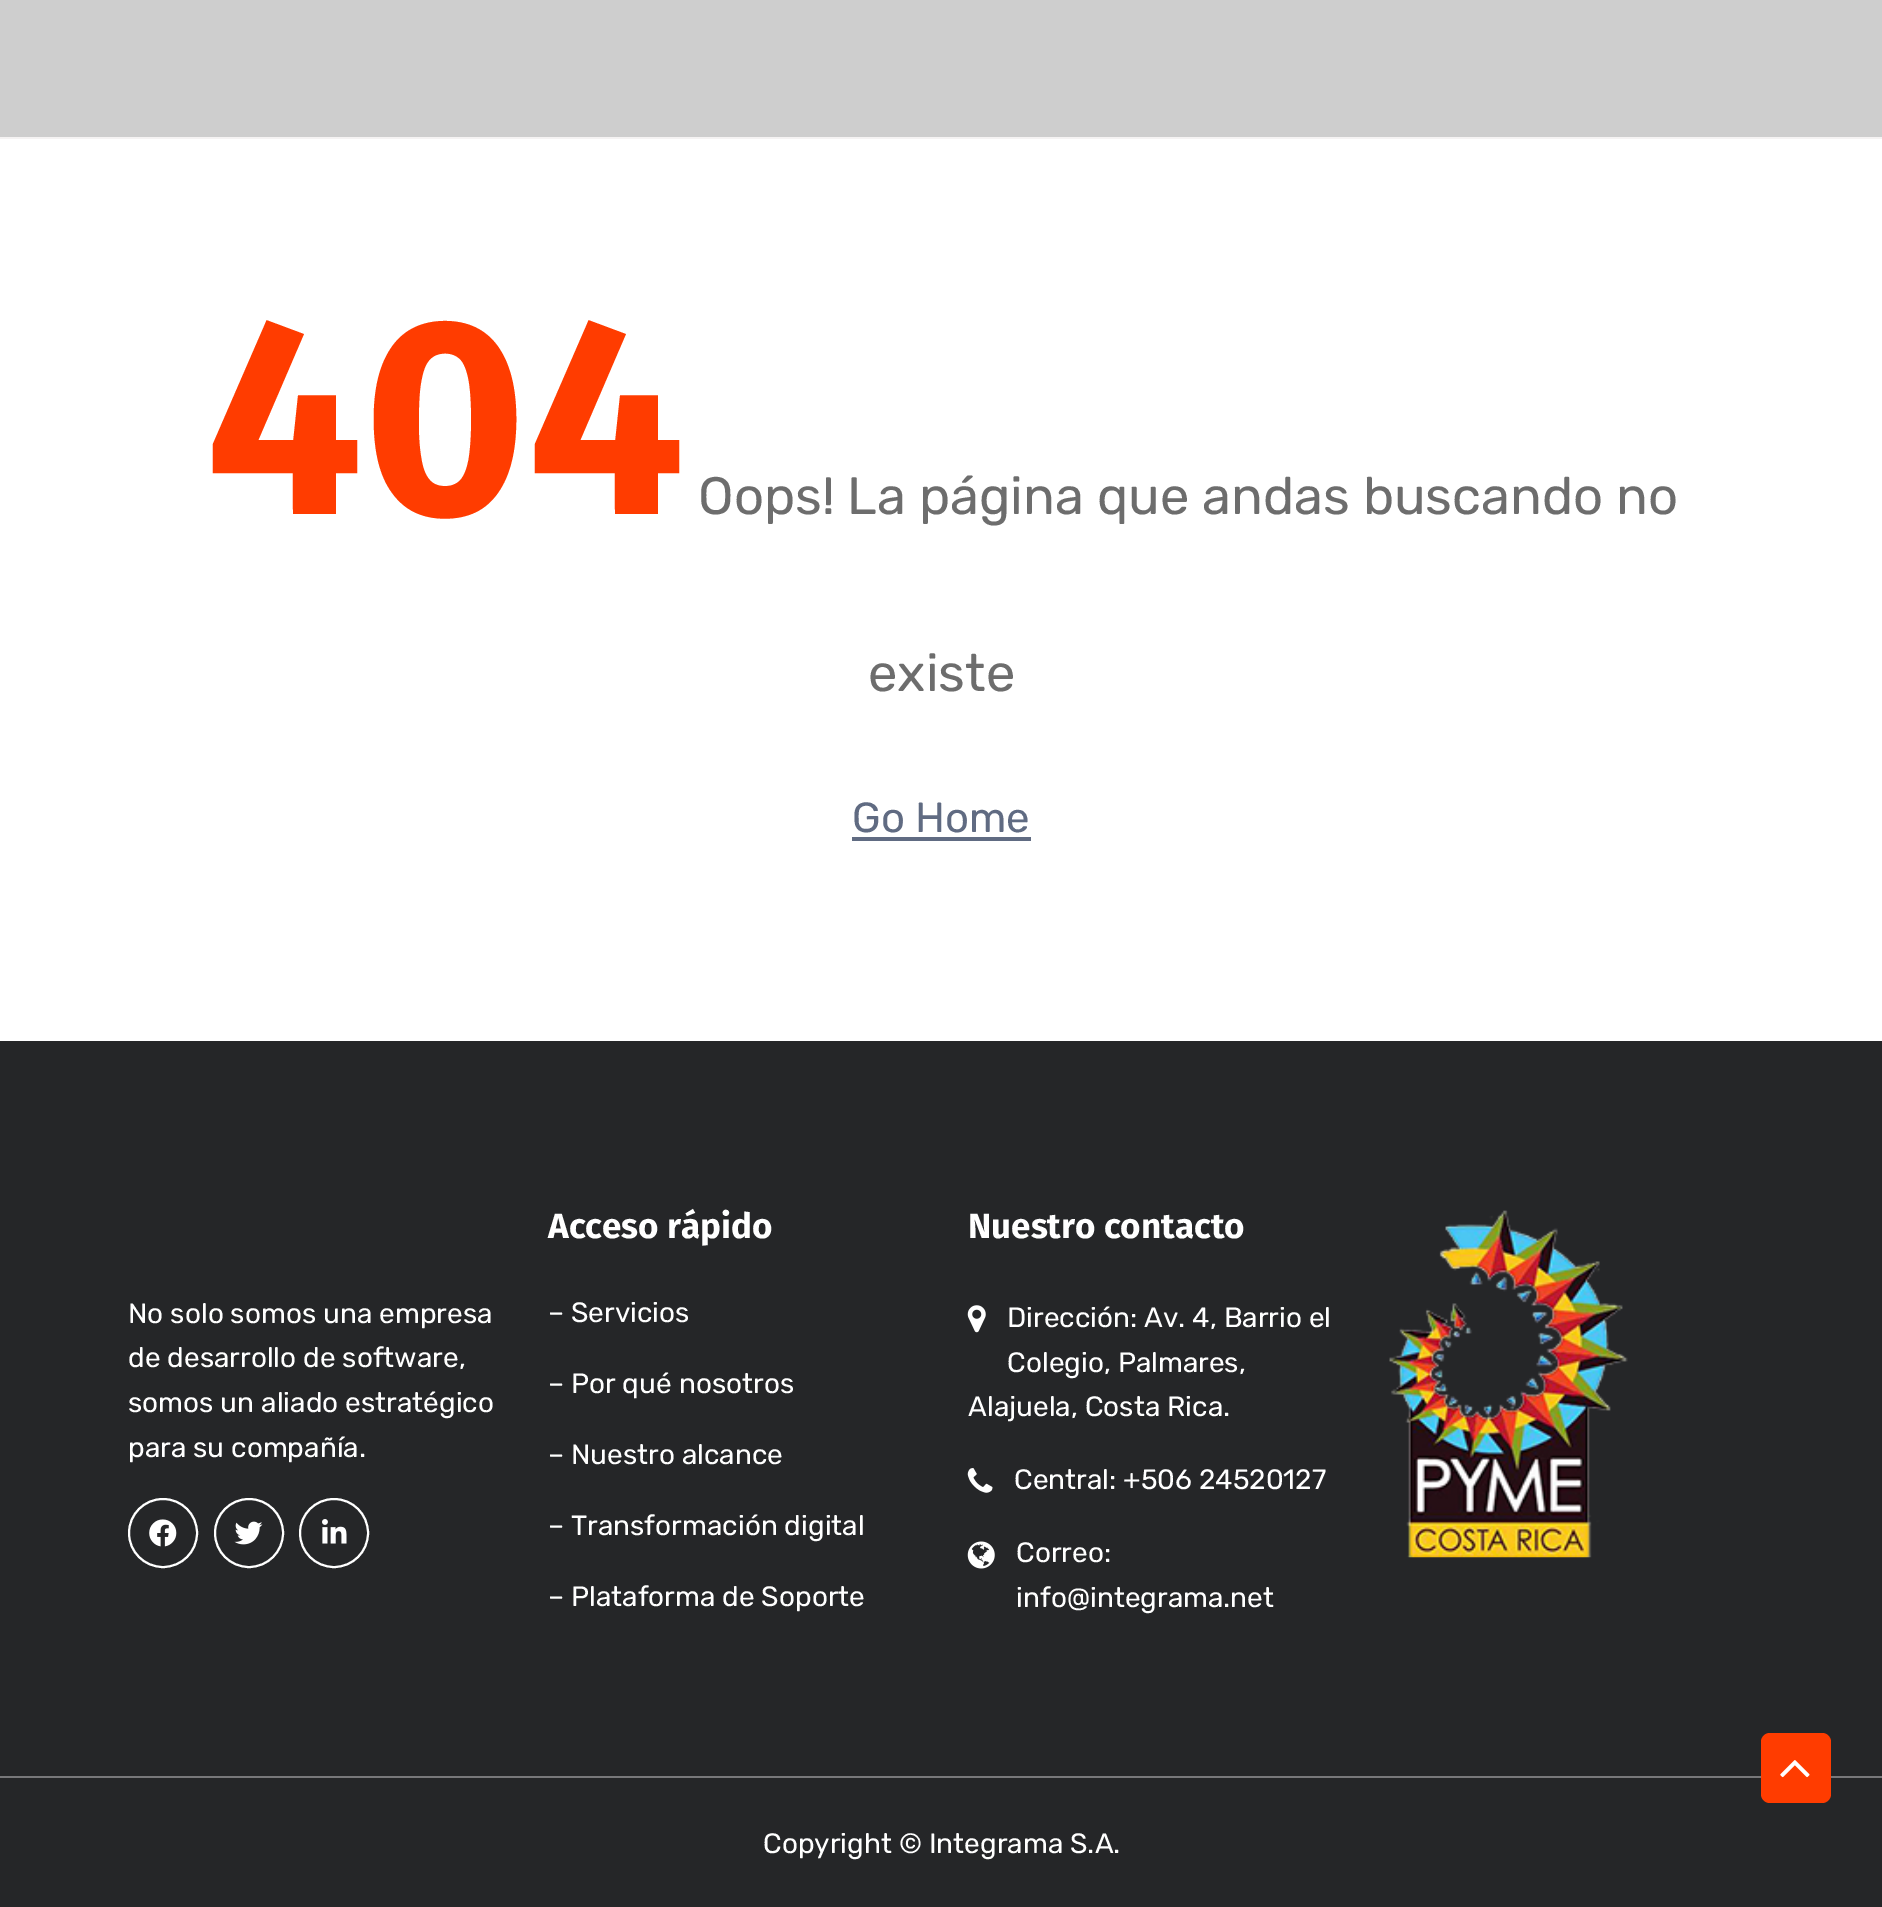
%!PS-Adobe-3.0
%%BoundingBox: 0 0 1882 1907
%%LanguageLevel: 3
%%Pages: 1
%%EndComments
%%BeginProlog
/setink { dup -16 bitshift 255 div exch dup -8 bitshift 255 and 255 div exch 255 and 255 div setrgbcolor } def
/usefont { [ exch dup neg 0 0 3 -1 roll 0 0 ] selectfont } def
/disc { newpath 0 360 arc closepath } def
/rrect { 5 dict begin { /r /h /w /y /x } { exch def } forall
  x r add y moveto x w add y 2 copy h add r arct x w add y h add x 1 index r arct
  x y h add x y r arct x y 2 copy exch w add exch r arct closepath end } def
/drawimage { 5 dict begin { /h /w /y /x /name } { exch def } forall
  gsave x y translate w h scale
  w h 8 [w 0 0 h 0 0] name (r) file false 3 colorimage grestore end } def
%%EndProlog
%%BeginSetup
<< /PageSize [1882 1907] >> setpagedevice
%%EndSetup
%%Page: 1 1
0 1907 translate 1 -1 scale
4 setmiterlimit
16#FFFFFF setink
0 0 1882 1907 rectfill
16#CECECE setink
0 0 1882 137 rectfill
16#F5F3F3 setink
0 137 1882 2 rectfill
/FiraSans-Bold 280 usefont
16#FF3C00 setink
205 514 moveto (404) show
/Rubik-Regular 52.5 usefont
16#6D6D6D setink
698 514 moveto (Oops! La página que andas buscando no) show
868 691 moveto (existe) show
/Rubik-Regular 42 usefont
16#606B82 setink
852 832 moveto (Go Home) show
852 837 179 4 rectfill
16#252628 setink
0 1041 1882 866 rectfill
/Rubik-Regular 28 usefont
16#FFFFFF setink
[
    [(No solo somos una empresa) 128 1323]
    [(de desarrollo de software,) 128 1367]
    [(somos un aliado estratégico) 128 1412]
    [(para su compañía.) 128 1457]
] { aload pop moveto show } forall
2 setlinewidth
163 1533 34 disc stroke
(img1.raw) 149 1519 28 28 drawimage
249 1533 34 disc stroke
(img2.raw) 234 1521 29 24 drawimage
334 1533 34 disc stroke
(img3.raw) 322 1519 25 25 drawimage
/FiraSans-Bold 35 usefont
548 1238 moveto (Acceso rápido) show
/Rubik-Regular 28 usefont
[
    [(– Servicios) 548 1322]
    [(– Por qué nosotros) 548 1393]
    [(– Nuestro alcance) 548 1464]
    [(– Transformación digital) 548 1535]
    [(– Plataforma de Soporte) 548 1606]
] { aload pop moveto show } forall
/FiraSans-Bold 35 usefont
968 1238 moveto (Nuestro contacto) show
(img4.raw) 967 1305 19 28 drawimage
/Rubik-Regular 28 usefont
[
    [(Dirección: Av. 4, Barrio el) 1007 1327]
    [(Colegio, Palmares,) 1007 1372]
    [(Alajuela, Costa Rica.) 968 1416]
] { aload pop moveto show } forall
(img5.raw) 967 1468 26 25 drawimage
1014 1489 moveto (Central: +506 24520127) show
(img6.raw) 967 1541 28 28 drawimage
1016 1562 moveto (Correo:) show
1016 1607 moveto (info@integrama.net) show
(img7.raw) 1389 1210 239 348 drawimage
16#78787A setink
0 1776 1882 2 rectfill
16#FFFFFF setink
763 1853 moveto (Copyright © Integrama S.A.) show
16#FF3C00 setink
1761 1733 70 70 9 rrect fill
(img8.raw) 1780 1760 30 18 drawimage
showpage
%%EOF
